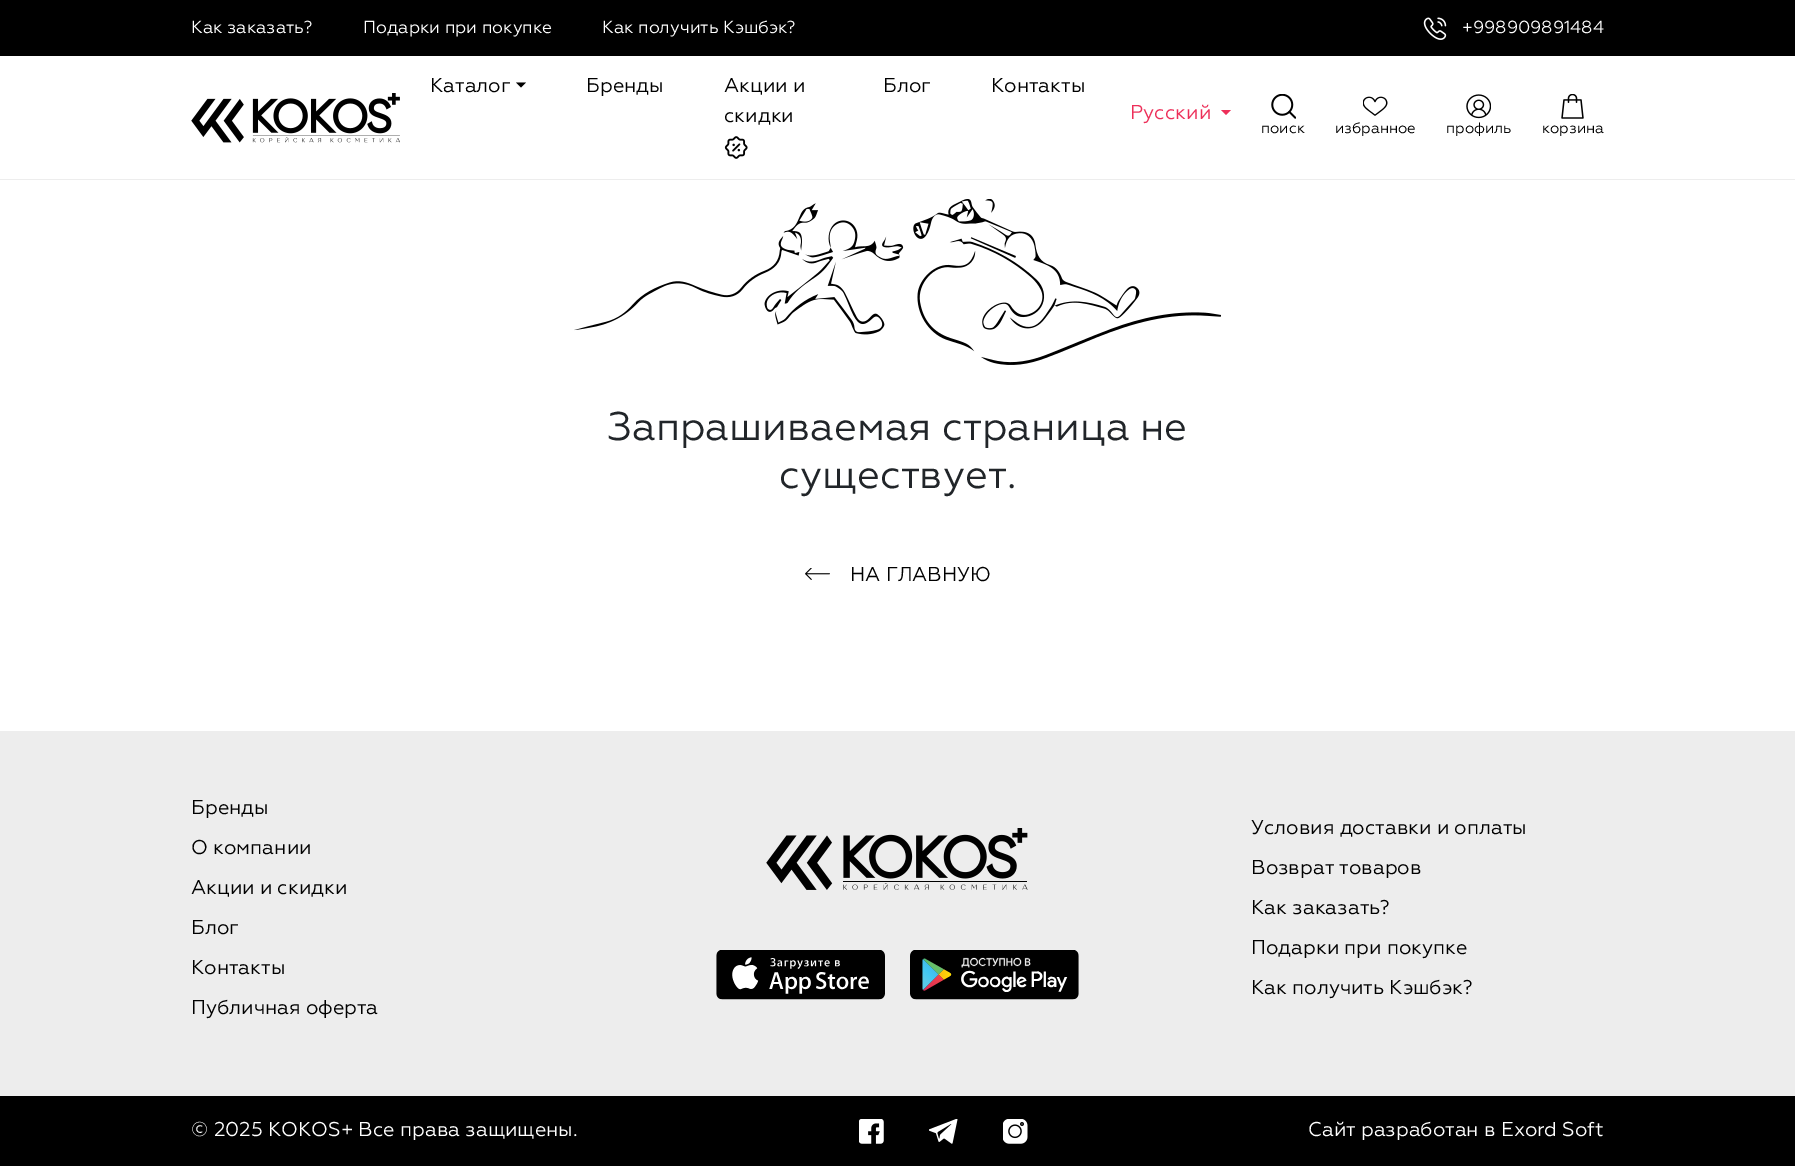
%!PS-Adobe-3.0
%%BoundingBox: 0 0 1795 1166
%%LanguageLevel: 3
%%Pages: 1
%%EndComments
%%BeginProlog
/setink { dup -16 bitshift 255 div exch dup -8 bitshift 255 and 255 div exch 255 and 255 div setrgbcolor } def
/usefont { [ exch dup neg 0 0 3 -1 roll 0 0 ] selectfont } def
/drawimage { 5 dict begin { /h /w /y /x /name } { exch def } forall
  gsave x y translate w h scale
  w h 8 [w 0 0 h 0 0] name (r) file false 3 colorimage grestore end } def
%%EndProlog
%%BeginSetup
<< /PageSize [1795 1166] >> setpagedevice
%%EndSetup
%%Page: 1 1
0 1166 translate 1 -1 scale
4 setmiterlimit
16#FFFFFF setink
0 0 1795 1166 rectfill
16#EDEDED setink
0 179 1795 1 rectfill
16#000000 setink
0 0 1795 56 rectfill
/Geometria-Regular 17.5 usefont
16#FFFFFF setink
[
    [(Как заказать?) 191 33]
    [(Подарки при покупке) 363 33]
    [(Как получить Кэшбэк?) 602 33]
] { aload pop moveto show } forall
(img1.raw) 1423 17 24 23 drawimage
1462 33 moveto (+998909891484) show
(img2.raw) 191 93 209 50 drawimage
/Geometria-Regular 20 usefont
16#000000 setink
430 92 moveto (Каталог) show
516 82.5 moveto 526 82.5 lineto 521 87.5 lineto closepath fill
[
    [(Бренды) 586 92]
    [(Акции и) 724 92]
    [(скидки) 724 122]
] { aload pop moveto show } forall
(img3.raw) 724 136 24 23 drawimage
883 92 moveto (Блог) show
991 92 moveto (Контакты) show
16#ED2F59 setink
1130 119 moveto (Русский) show
1221 110 moveto 1231 110 lineto 1226 115 lineto closepath fill
(img4.raw) 1271 94 25 25 drawimage
/Geometria-Regular 15 usefont
16#000000 setink
1261 133 moveto (поиск) show
(img5.raw) 1363 96 25 20 drawimage
1335 133 moveto (избранное) show
(img6.raw) 1466 94 25 25 drawimage
1446 133 moveto (профиль) show
(img7.raw) 1561 94 23 25 drawimage
1542 133 moveto (корзина) show
(img8.raw) 574 199 647 166 drawimage
/Geometria-Regular 40 usefont
16#212529 setink
607 440 moveto (Запрашиваемая страница не) show
779 488 moveto (существует.) show
(img9.raw) 805 568 25 12 drawimage
/Geometria-Regular 20 usefont
16#000000 setink
850 581 moveto (НА ГЛАВНУЮ) show
16#EDEDED setink
0 731 1795 365 rectfill
16#000000 setink
[
    [(Бренды) 191 814]
    [(О компании) 191 854]
    [(Акции и скидки) 191 894]
    [(Блог) 191 934]
    [(Контакты) 191 974]
    [(Публичная оферта) 191 1014]
] { aload pop moveto show } forall
(img10.raw) 766 828 262 62 drawimage
(img11.raw) 716 950 169 50 drawimage
(img12.raw) 910 950 169 50 drawimage
[
    [(Условия доставки и оплаты) 1251 834]
    [(Возврат товаров) 1251 874]
    [(Как заказать?) 1251 914]
    [(Подарки при покупке) 1251 954]
    [(Как получить Кэшбэк?) 1251 994]
] { aload pop moveto show } forall
0 1096 1795 70 rectfill
16#FFFFFF setink
191 1136 moveto (© 2025 KOKOS+ Все права защищены.) show
(img13.raw) 859 1119 25 25 drawimage
(img14.raw) 929 1119 29 25 drawimage
(img15.raw) 1003 1119 25 25 drawimage
1308 1136 moveto (Сайт разработан в Exord Soft) show
showpage
%%EOF
